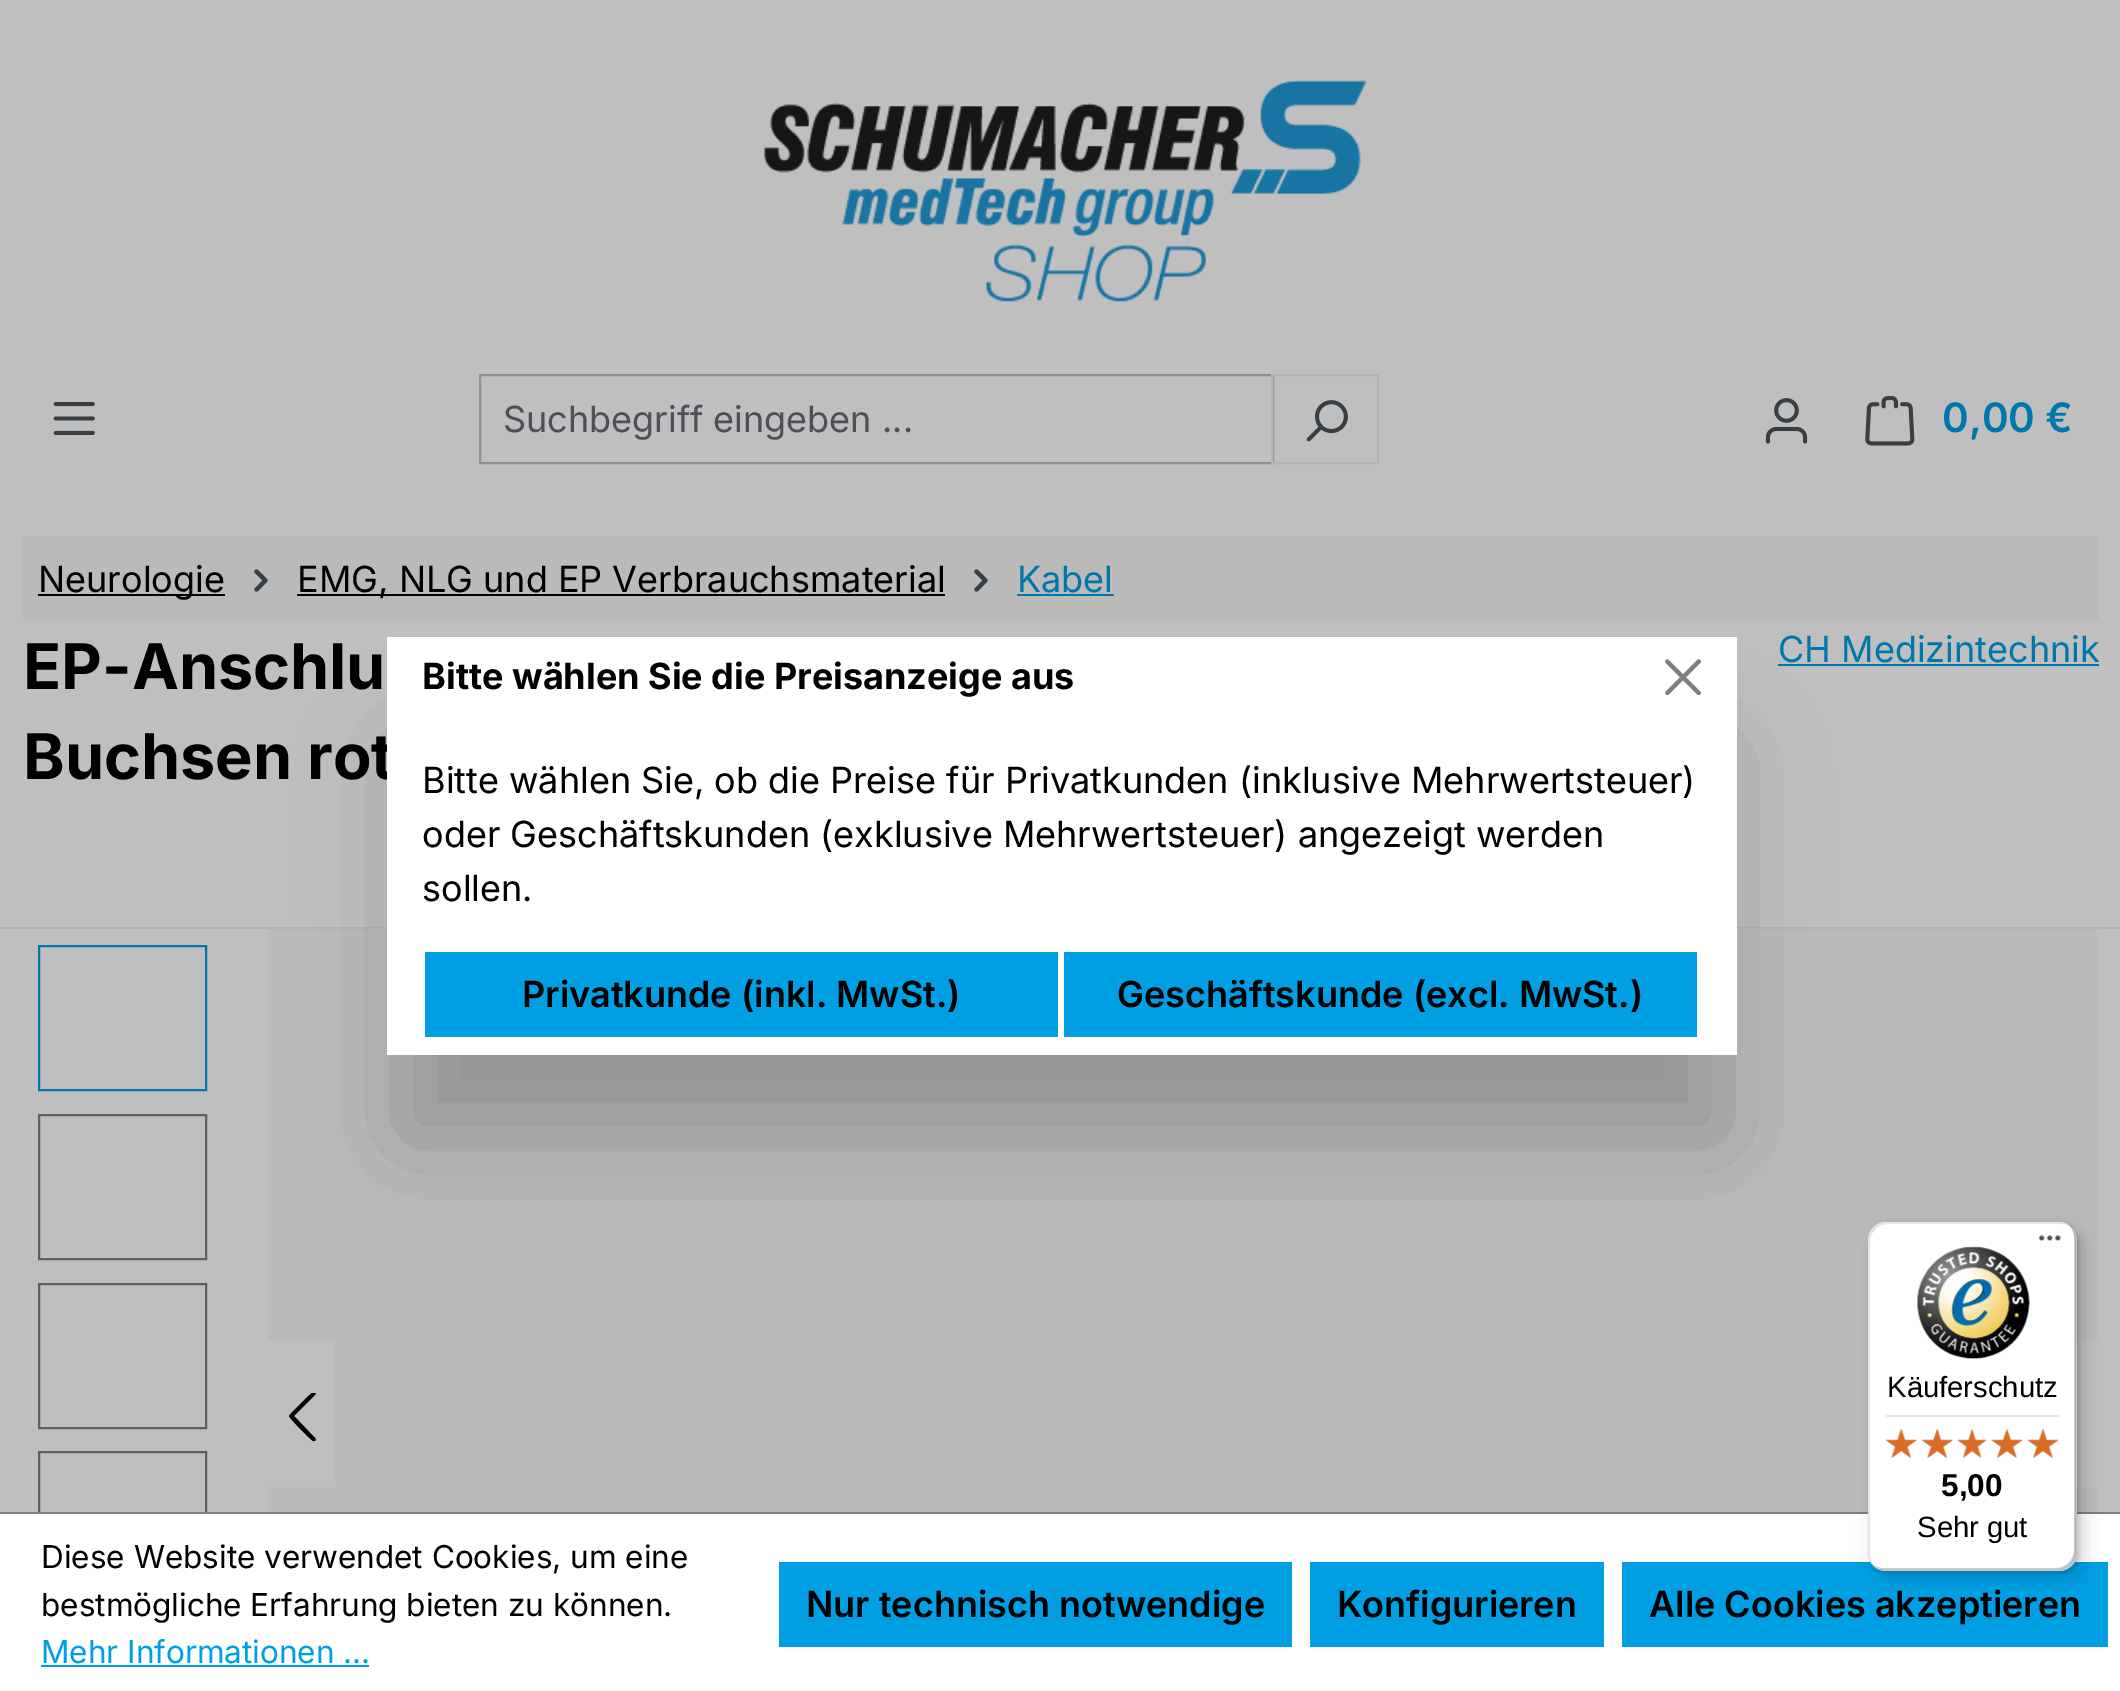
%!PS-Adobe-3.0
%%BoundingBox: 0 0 2120 1691
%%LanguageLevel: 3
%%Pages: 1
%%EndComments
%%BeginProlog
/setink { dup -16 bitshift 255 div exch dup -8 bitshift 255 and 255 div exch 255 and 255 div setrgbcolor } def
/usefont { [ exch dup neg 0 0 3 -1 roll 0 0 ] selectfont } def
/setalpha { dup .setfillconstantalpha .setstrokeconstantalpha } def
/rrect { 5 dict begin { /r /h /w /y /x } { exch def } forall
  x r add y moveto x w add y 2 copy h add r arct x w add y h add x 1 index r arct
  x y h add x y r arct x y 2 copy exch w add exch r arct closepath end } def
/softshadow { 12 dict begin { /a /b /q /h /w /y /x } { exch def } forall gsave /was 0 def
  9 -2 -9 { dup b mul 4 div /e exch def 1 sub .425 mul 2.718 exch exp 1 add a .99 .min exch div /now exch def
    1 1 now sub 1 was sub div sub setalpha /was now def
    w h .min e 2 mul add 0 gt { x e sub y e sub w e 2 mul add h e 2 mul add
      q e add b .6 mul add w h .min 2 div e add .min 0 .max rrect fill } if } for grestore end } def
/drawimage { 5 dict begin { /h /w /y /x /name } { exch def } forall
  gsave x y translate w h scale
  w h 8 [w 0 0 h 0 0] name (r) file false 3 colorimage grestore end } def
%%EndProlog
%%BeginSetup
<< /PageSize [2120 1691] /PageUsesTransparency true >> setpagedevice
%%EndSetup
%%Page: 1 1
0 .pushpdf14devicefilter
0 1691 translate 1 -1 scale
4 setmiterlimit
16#BFBFBF setink
0 0 2120 1691 rectfill
(img1.raw) 764 80 603 222 drawimage
(img2.raw) 53 402 42 33 drawimage
16#8D9195 setink
2 setlinewidth
480 375 793 88 rectstroke
/Inter-Regular 36 usefont
16#4D4F59 setink
503 432 moveto (Suchbegriff eingeben ...) show
16#B6B3B3 setink
1272 375 106 88 rectstroke
(img3.raw) 1306 400 42 42 drawimage
(img4.raw) 1765 398 43 46 drawimage
(img5.raw) 1865 396 50 50 drawimage
/Inter-SemiBold 40.5 usefont
16#0077AA setink
1942 432 moveto (0,00 €) show
16#BABABA setink
23 536 2076 85 rectfill
16#000000 setink
38 594 187 2 rectfill
/Inter-Regular 36 usefont
38 592 moveto (Neurologie) show
(img6.raw) 254 569 14 23 drawimage
297 594 648 2 rectfill
297 592 moveto (EMG, NLG und EP Verbrauchsmaterial) show
(img6.raw) 974 569 14 23 drawimage
16#0077AA setink
1017 592 moveto (Kabel) show
1017 594 97 2 rectfill
/Inter-Bold 63 usefont
16#000000 setink
23 689 moveto (EP-Anschlu) show
23 779 moveto (Buchsen rot) show
/Inter-Regular 36 usefont
16#0077AA setink
1778 662 moveto (CH Medizintechnik) show
1778 664 321 2 rectfill
16#B6B3B3 setink
0 927 2120 2 rectfill
16#0077AA setink
39 946 167 144 rectstroke
16#606060 setink
39 1115 167 144 rectstroke
39 1284 167 144 rectstroke
39 1452 167 145 rectstroke
16#BABABA setink
268 929 1829 583 rectfill
16#BFBFBF setink
268 1341 67 146 rectfill
gsave
277 1393 49 49 rectclip
16#000000 setink
294 1416 moveto 315 1438 lineto 316 1439 316 1441 314 1441 curveto 313 1441 lineto 310 1439 289 1418 289 1416 curveto 289 1415 310 1394 313 1392 curveto 314 1392 lineto 316 1392 316 1394 315 1395 curveto closepath eofill
grestore
2077 1341 20 146 rectfill
16#000000 setink
401 747 1323 392 0 48.5 0.2 softshadow
16#FFFFFF setink
387 637 1350 418 rectfill
/Inter-Bold 36 usefont
16#000000 setink
422 689 moveto (Bitte wählen Sie die Preisanzeige aus) show
(img7.raw) 1665 659 36 36 drawimage
/Inter-Regular 36 usefont
[
    [(Bitte wählen Sie, ob die Preise für Privatkunden \(inklusive Mehrwertsteuer\)) 422 793]
    [(oder Geschäftskunden \(exklusive Mehrwertsteuer\) angezeigt werden) 422 847]
    [(sollen.) 422 901]
] { aload pop moveto show } forall
16#009FE3 setink
425 952 633 85 rectfill
/Inter-SemiBold 36 usefont
16#000000 setink
522 1007 moveto (Privatkunde \(inkl. MwSt.\)) show
16#009FE3 setink
1064 952 633 85 rectfill
16#000000 setink
1117 1007 moveto (Geschäftskunde \(excl. MwSt.\)) show
[
    [0 1514 2120 177 16#FFFFFF]
    [0 1512 2120 2 16#808080]
    [1622 1562 486 85 16#009FE3]
] { aload pop setink rectfill } forall
16#000000 setink
1874 1229 210 348 18 9 0.15 softshadow
1870 1224 209 349 18 2 0.15 softshadow
16#FFFFFF setink
1868 1222 209 349 18 rrect fill
0.1 setalpha
16#000000 setink
1888 1224 moveto 2061 1224 lineto 2065 1224 2069 1226 2073 1228 curveto 2069 1224 2064 1222 2059 1222 curveto 1886 1222 lineto 1876 1222 1868 1230 1868 1240 curveto 1868 1553 lineto 1868 1558 1870 1563 1874 1567 curveto 1872 1563 1870 1559 1870 1555 curveto 1870 1242 lineto 1870 1232 1878 1224 1888 1224 curveto closepath fill
0.2 setalpha
1872 1564 moveto 1875 1568 1880 1571 1886 1571 curveto 2059 1571 lineto 2069 1571 2077 1563 2077 1553 curveto 2077 1240 lineto 2077 1233 2073 1227 2068 1224 curveto 2072 1227 2074 1232 2074 1238 curveto 2074 1550 lineto 2074 1560 2066 1568 2056 1568 curveto 1883 1568 lineto 1879 1568 1875 1567 1872 1564 curveto closepath fill
16#323232 setink
1872 1565 moveto 1876 1569 1881 1571 1886 1571 curveto 2059 1571 lineto 2069 1571 2077 1563 2077 1553 curveto 2077 1240 lineto 2077 1235 2075 1230 2071 1226 curveto 2073 1230 2075 1234 2075 1238 curveto 2075 1551 lineto 2075 1561 2067 1569 2057 1569 curveto 1884 1569 lineto 1880 1569 1876 1567 1872 1565 curveto closepath fill
0.3 setalpha
16#FFFFFF setink
1872 1565 moveto 1876 1569 1881 1571 1886 1571 curveto 2059 1571 lineto 2069 1571 2077 1563 2077 1553 curveto 2077 1240 lineto 2077 1235 2075 1230 2072 1227 curveto 2074 1230 2076 1234 2076 1239 curveto 2076 1551 lineto 2076 1561 2068 1569 2058 1569 curveto 1884 1569 lineto 1880 1569 1876 1567 1872 1565 curveto closepath fill
1 setalpha
(img8.raw) 2038 1235 23 7 drawimage
(img9.raw) 1917 1246 113 113 drawimage
/LiberationSans-Regular 29.25 usefont
16#000000 setink
1887 1397 moveto (Käuferschutz) show
16#E5E5E5 setink
1886 1415 173 2 rectfill
(img15.raw) 1885 1429 32 29 drawimage
(img10.raw) 1885 1428 32 30 drawimage
(img16.raw) 1922 1429 31 29 drawimage
(img11.raw) 1921 1428 32 30 drawimage
(img17.raw) 1957 1429 30 29 drawimage
(img12.raw) 1957 1428 30 30 drawimage
(img18.raw) 1991 1429 32 29 drawimage
(img13.raw) 1991 1428 32 30 drawimage
(img19.raw) 2027 1429 32 29 drawimage
(img14.raw) 2027 1428 32 30 drawimage
/LiberationSans-Bold 31.5 usefont
16#000000 setink
1941 1496 moveto (5,00) show
/LiberationSans-Regular 29.25 usefont
1917 1537 moveto (Sehr gut) show
/Inter-Regular 31.5 usefont
41 1568 moveto (Diese Website verwendet Cookies, um eine) show
41 1616 moveto (bestmögliche Erfahrung bieten zu können.) show
16#009FE3 setink
41 1663 moveto (Mehr Informationen ...) show
41 1665 328 2 rectfill
779 1562 513 85 rectfill
/Inter-SemiBold 36 usefont
16#000000 setink
806 1617 moveto (Nur technisch notwendige) show
16#009FE3 setink
1310 1562 294 85 rectfill
16#000000 setink
1337 1617 moveto (Konfigurieren) show
1649 1617 moveto (Alle Cookies akzeptieren) show
.poppdf14devicefilter showpage
%%EOF
